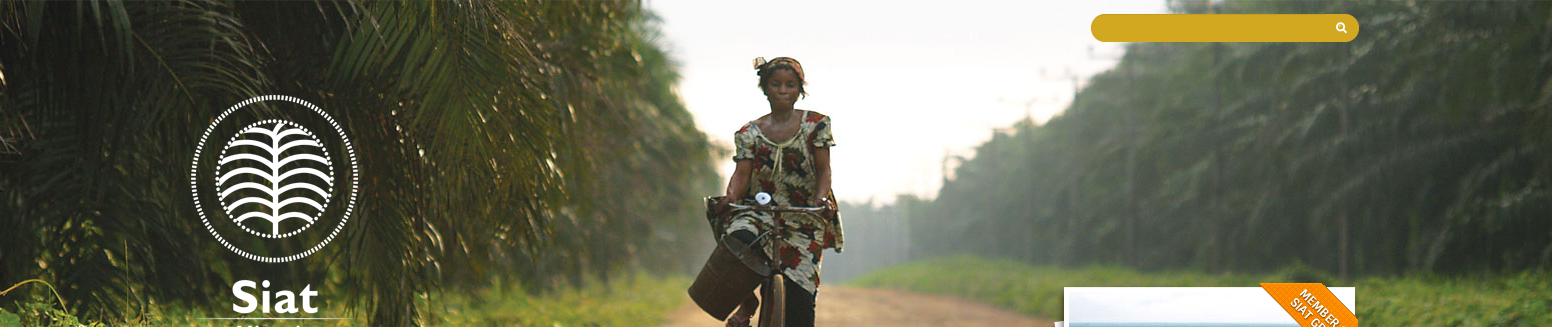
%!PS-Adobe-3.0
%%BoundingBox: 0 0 1552 327
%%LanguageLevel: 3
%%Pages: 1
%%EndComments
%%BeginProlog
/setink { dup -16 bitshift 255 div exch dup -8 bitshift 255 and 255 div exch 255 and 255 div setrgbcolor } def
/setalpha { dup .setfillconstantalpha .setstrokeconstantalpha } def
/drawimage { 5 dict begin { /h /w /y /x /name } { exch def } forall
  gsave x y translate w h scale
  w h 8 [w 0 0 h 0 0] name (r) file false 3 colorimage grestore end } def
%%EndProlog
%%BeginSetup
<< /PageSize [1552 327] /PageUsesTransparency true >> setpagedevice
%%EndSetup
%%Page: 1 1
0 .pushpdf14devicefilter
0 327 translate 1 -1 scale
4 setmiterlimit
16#FFFFFF setink
0 0 1552 327 rectfill
(img1.raw) 0 0 1552 327 drawimage
16#D2A821 setink
1324 14 moveto 1345 14 lineto 1352.5 14 1359 20.5 1359 28 curveto 1359 35.5 1352.5 42 1345 42 curveto 1324 42 lineto closepath fill
1105 14 moveto 1325 14 lineto 1325 42 lineto 1105 42 lineto 1097.5 42 1091 35.5 1091 28 curveto 1091 20.5 1097.5 14 1105 14 curveto closepath fill
0.07 setalpha
16#000000 setink
1105 15 moveto 1325 15 lineto 1325 14 lineto 1105 14 lineto 1097 14 1091 21 1091 28 curveto 1091 21 1097 15 1105 15 curveto closepath fill
1 setalpha
(img2.raw) 1336 22 11 12 drawimage
(img3.raw) 191 95 167 232 drawimage
(img5.raw) 1048 286 311 41 drawimage
(img6.raw) 1069 292 281 35 drawimage
(img4.raw) 1259 283 99 44 drawimage
.poppdf14devicefilter showpage
%%EOF
